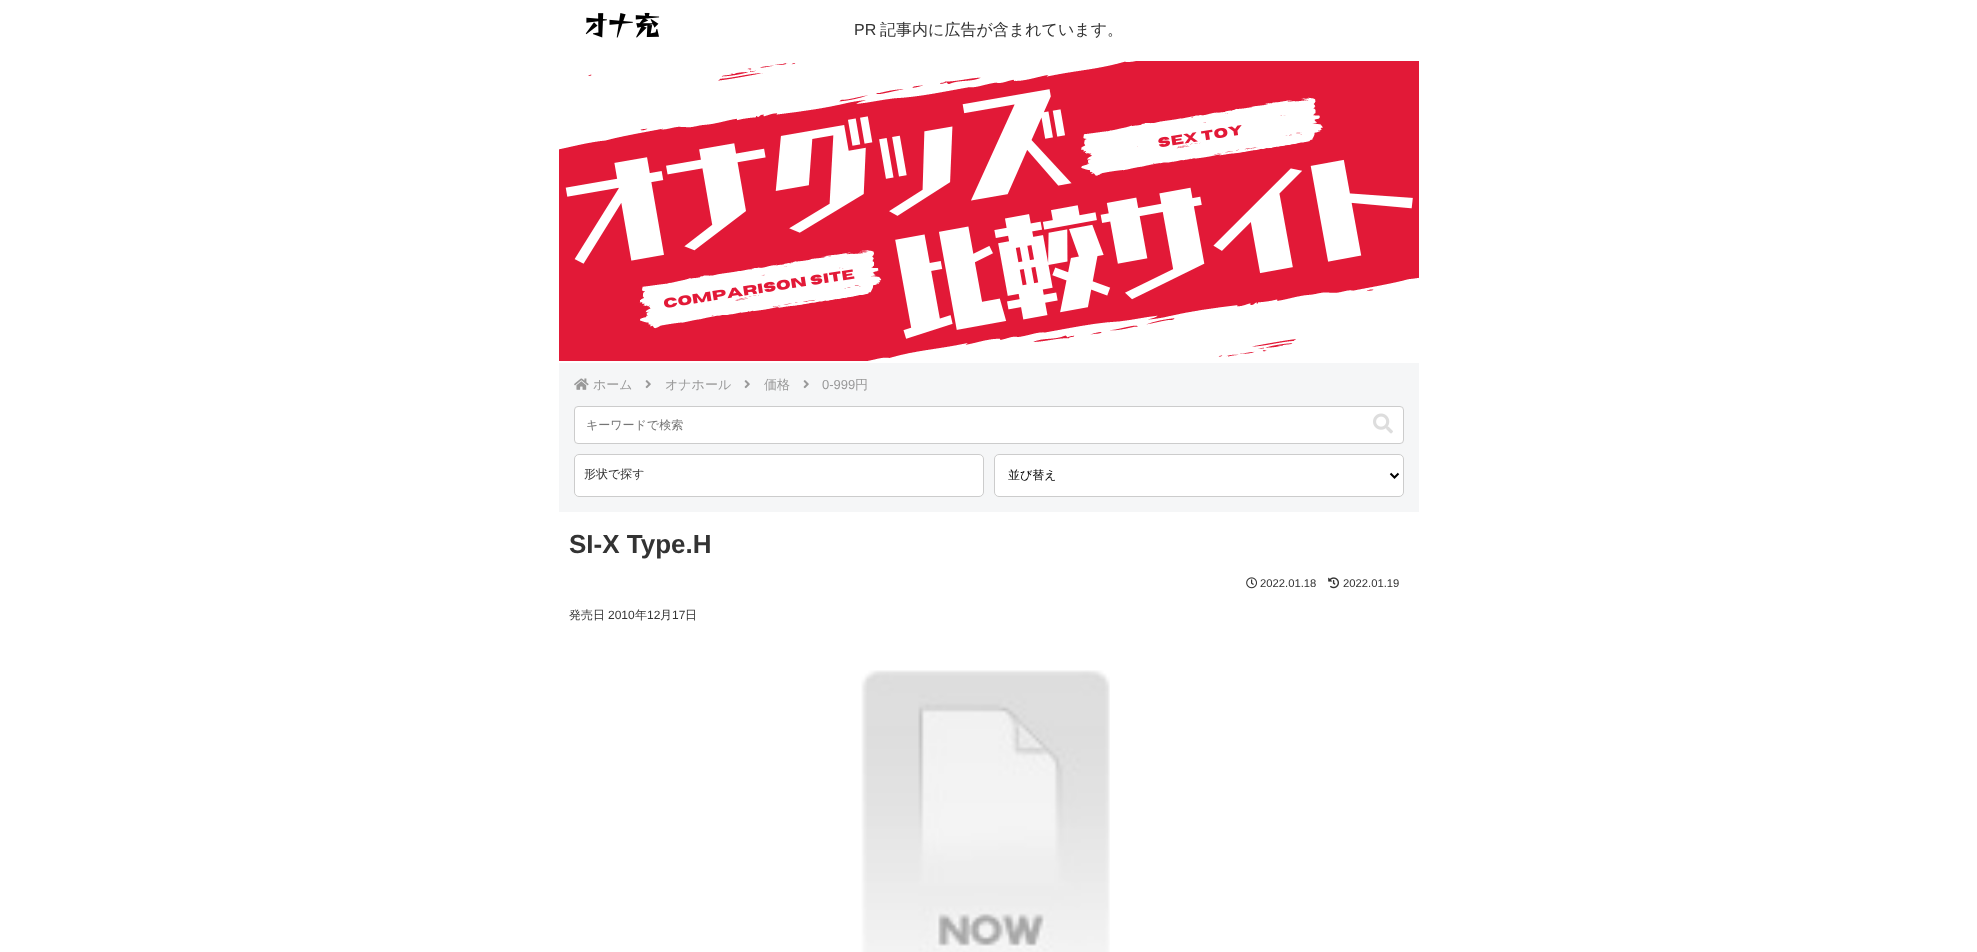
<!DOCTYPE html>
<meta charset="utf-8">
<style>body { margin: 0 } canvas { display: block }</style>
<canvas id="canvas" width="1977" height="952"></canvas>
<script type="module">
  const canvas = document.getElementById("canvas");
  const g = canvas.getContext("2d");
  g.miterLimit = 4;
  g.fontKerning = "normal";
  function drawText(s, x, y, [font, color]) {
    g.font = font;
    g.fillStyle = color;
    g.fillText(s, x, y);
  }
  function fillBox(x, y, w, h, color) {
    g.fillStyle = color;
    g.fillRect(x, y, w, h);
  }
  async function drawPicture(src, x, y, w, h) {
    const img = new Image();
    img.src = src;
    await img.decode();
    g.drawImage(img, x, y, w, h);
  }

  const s1 = ["16px Liberation Sans", "#333333"];
  const s2 = ["500 16px WenQuanYi Zen Hei", "#333333"];
  const s3 = ["500 13px WenQuanYi Zen Hei", "#999999"];
  const s4 = ["13px Liberation Sans", "#999999"];
  const s5 = ["500 12px WenQuanYi Zen Hei", "#757575"];
  const s6 = ["500 12px WenQuanYi Zen Hei", "#333333"];
  const s7 = ["500 12px WenQuanYi Zen Hei", "#000000"];
  const s8 = ["bold 26px Liberation Sans", "#333333"];
  const s9 = ["11.25px Liberation Sans", "#333333"];
  const s10 = ["12px Liberation Sans", "#333333"];

  fillBox(0, 0, 1977, 952, "#FFFFFF");
  drawText("PR", 854, 35, s1);
  drawText("記事内に広告が含まれています。", 880, 35, s2);
  await drawPicture("pic1.png", 585, 12, 75, 26);
  await drawPicture("pic2.png", 559, 61, 860, 300);
  fillBox(559, 363, 860, 149, "#F5F6F7");
  await drawPicture("pic3.png", 574, 378, 15, 12);
  drawText("ホーム", 593, 389, s3);
  await drawPicture("pic4.png", 645, 380, 6, 9);
  drawText("オナホール", 665, 389, s3);
  await drawPicture("pic4.png", 744, 380, 6, 9);
  drawText("価格", 764, 389, s3);
  await drawPicture("pic4.png", 803, 380, 6, 9);
  drawText("0-999", 822, 389, s4);
  drawText("円", 855, 389, s3);
  g.fillStyle = "#FFFFFF";
  g.beginPath();
  g.roundRect(574.5, 406.5, 829, 37, 3.5);
  g.fill();
  g.strokeStyle = "#CCCCCC";
  g.stroke();
  drawText("キーワードで検索", 586, 429, s5);
  await drawPicture("pic5.png", 1373, 413, 20, 21);
  g.fillStyle = "#FFFFFF";
  g.beginPath();
  g.roundRect(574.5, 454.5, 409, 42, 4.5);
  g.fill();
  g.stroke();
  drawText("形状で探す", 584, 478, s6);
  g.fillStyle = "#FFFFFF";
  g.beginPath();
  g.roundRect(994.5, 454.5, 409, 42, 4.5);
  g.fill();
  g.stroke();
  g.beginPath();
  g.moveTo(1390.5, 473.5);
  g.lineTo(1394.5, 477.5);
  g.lineTo(1398.5, 473.5);
  g.strokeStyle = "#000000";
  g.lineWidth = 2;
  g.stroke();
  drawText("並び替え", 1008, 479, s7);
  drawText("SI-X Type.H", 569, 553, s8);
  await drawPicture("pic6.png", 1246, 577, 11, 12);
  drawText("2022.01.18", 1260, 587, s9);
  await drawPicture("pic7.png", 1328, 577, 11, 12);
  drawText("2022.01.19", 1343, 587, s9);
  drawText("発売日", 569, 619, s6);
  drawText("2010", 608, 619, s10);
  drawText("年", 635, 619, s6);
  drawText("12", 647, 619, s10);
  drawText("月", 660, 619, s6);
  drawText("17", 672, 619, s10);
  drawText("日", 685, 619, s6);
  await drawPicture("pic8.png", 861, 670, 249, 282);
</script>
